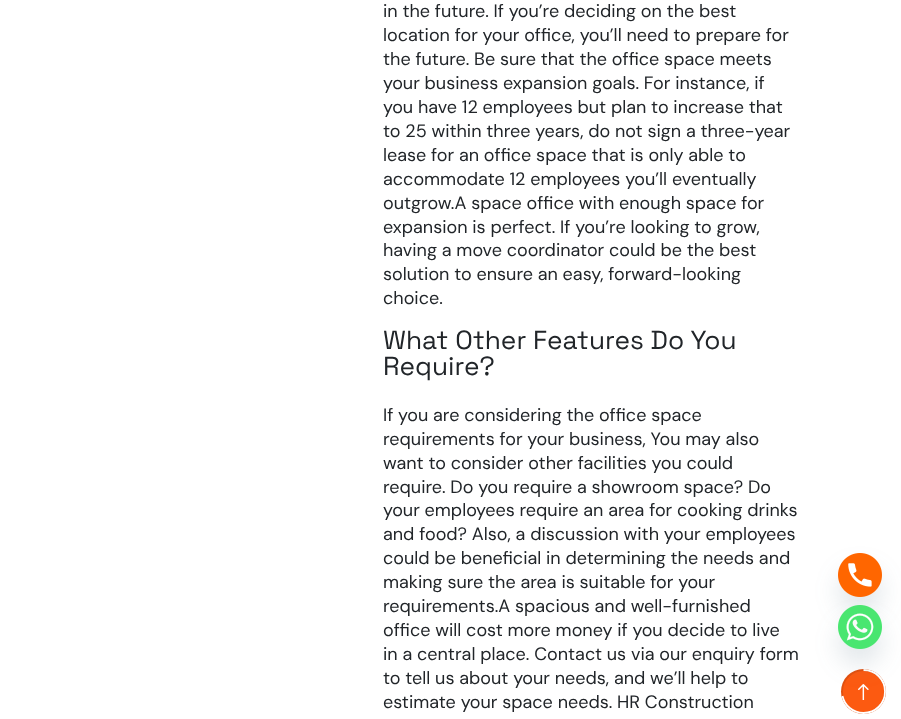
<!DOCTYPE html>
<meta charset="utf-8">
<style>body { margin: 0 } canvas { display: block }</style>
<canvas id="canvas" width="901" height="719"></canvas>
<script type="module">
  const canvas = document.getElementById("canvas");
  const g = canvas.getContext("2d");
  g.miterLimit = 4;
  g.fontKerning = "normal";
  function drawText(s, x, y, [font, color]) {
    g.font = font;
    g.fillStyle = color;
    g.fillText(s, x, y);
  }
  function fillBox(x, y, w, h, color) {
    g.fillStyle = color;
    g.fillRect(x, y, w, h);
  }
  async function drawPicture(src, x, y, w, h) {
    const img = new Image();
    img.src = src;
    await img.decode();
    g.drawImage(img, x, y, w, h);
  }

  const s1 = ["18px DM Sans", "#212529"];
  const s2 = ["26.25px Space Grotesk", "#212529"];

  fillBox(0, 0, 901, 719, "#FFFFFF");
  drawText("in the future. If you’re deciding on the best", 383, 17, s1);
  drawText("location for your office, you’ll need to prepare for", 383, 41, s1);
  drawText("the future. Be sure that the office space meets", 383, 65, s1);
  drawText("your business expansion goals. For instance, if", 383, 89, s1);
  drawText("you have 12 employees but plan to increase that", 383, 113, s1);
  drawText("to 25 within three years, do not sign a three-year", 383, 137, s1);
  drawText("lease for an office space that is only able to", 383, 161, s1);
  drawText("accommodate 12 employees you’ll eventually", 383, 185, s1);
  drawText("outgrow.A space office with enough space for", 383, 209, s1);
  drawText("expansion is perfect. If you’re looking to grow,", 383, 233, s1);
  drawText("having a move coordinator could be the best", 383, 256, s1);
  drawText("solution to ensure an easy, forward-looking", 383, 280, s1);
  drawText("choice.", 383, 304, s1);
  drawText("What Other Features Do You", 383, 349, s2);
  drawText("Require?", 383, 375, s2);
  drawText("If you are considering the office space", 383, 421, s1);
  drawText("requirements for your business, You may also", 383, 445, s1);
  drawText("want to consider other facilities you could", 383, 469, s1);
  drawText("require. Do you require a showroom space? Do", 383, 493, s1);
  drawText("your employees require an area for cooking drinks", 383, 516, s1);
  drawText("and food? Also, a discussion with your employees", 383, 540, s1);
  drawText("could be beneficial in determining the needs and", 383, 564, s1);
  drawText("making sure the area is suitable for your", 383, 588, s1);
  drawText("requirements.A spacious and well-furnished", 383, 612, s1);
  drawText("office will cost more money if you decide to live", 383, 636, s1);
  drawText("in a central place. Contact us via our enquiry form", 383, 660, s1);
  drawText("to tell us about your needs, and we’ll help to", 383, 684, s1);
  drawText("estimate your space needs. HR Construction", 383, 708, s1);
  g.fillStyle = "rgba(73, 104, 126, 0.16)";
  g.filter = "blur(12px)";
  g.beginPath();
  g.roundRect(838, 569, 44, 44, 22);
  g.fill();
  g.filter = "none";
  await drawPicture("pic1.png", 838, 553, 44, 44);
  g.fillStyle = "#FC5A11";
  g.beginPath();
  g.arc(863.5, 691.5, 22.5, 0, Math.PI * 2);
  g.fill();
  g.beginPath();
  g.arc(863.5, 691.5, 21.5, 0, Math.PI * 2);
  g.strokeStyle = "rgba(0, 0, 0, 0.1)";
  g.lineWidth = 2;
  g.stroke();
  await drawPicture("pic3.png", 858, 684, 11, 16);
  g.beginPath();
  g.moveTo(863.5, 670);
  g.bezierCurveTo(875.5, 670, 885, 679.5, 885, 691.5);
  g.bezierCurveTo(885, 703.5, 875.5, 713, 863.5, 713);
  g.bezierCurveTo(853, 713, 844.5, 705.5, 842.5, 696);
  g.strokeStyle = "#FFFFFF";
  g.lineWidth = 1.8;
  g.stroke();
  g.fillStyle = "rgba(73, 104, 126, 0.16)";
  g.filter = "blur(12px)";
  g.beginPath();
  g.roundRect(838, 621, 44, 44, 22);
  g.fill();
  g.filter = "none";
  await drawPicture("pic2.png", 838, 605, 44, 44);
</script>
